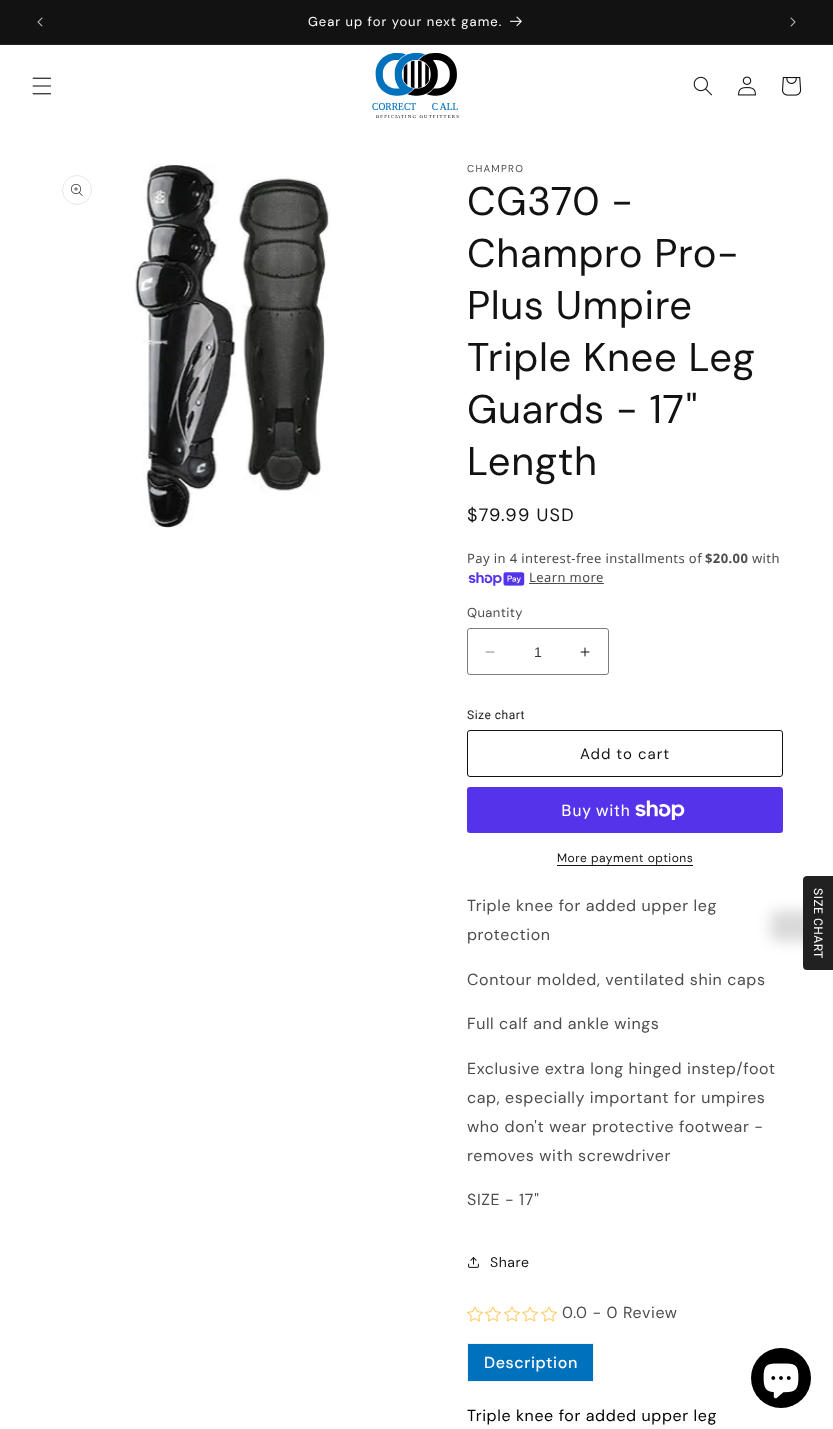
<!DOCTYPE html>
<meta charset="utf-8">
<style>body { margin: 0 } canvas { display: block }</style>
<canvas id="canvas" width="833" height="1429"></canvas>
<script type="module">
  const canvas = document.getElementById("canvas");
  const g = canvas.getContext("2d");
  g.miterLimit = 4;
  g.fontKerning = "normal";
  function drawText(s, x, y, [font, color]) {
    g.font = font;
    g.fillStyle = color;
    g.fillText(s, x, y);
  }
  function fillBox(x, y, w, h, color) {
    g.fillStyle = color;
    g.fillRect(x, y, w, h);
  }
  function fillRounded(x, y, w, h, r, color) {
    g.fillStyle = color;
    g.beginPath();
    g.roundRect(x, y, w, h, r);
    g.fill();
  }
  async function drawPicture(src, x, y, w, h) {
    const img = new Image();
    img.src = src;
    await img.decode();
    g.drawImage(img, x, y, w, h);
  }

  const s1 = ["13px DM Sans", "#FFFFFF"];
  const s2 = ["10px DM Sans", "#4D4D4D"];
  const s3 = ["40px DM Sans", "#121212"];
  const s4 = ["18px DM Sans", "#121212"];
  const s5 = ["13px Noto Sans", "#4D4D4D"];
  const s6 = ["bold 13px Noto Sans", "#4D4D4D"];
  const s7 = ["13px DM Sans", "#4D4D4D"];
  const s8 = ["14px Liberation Sans", "#363636"];
  const s9 = ["12px Roboto", "#212121"];
  const s10 = ["15px DM Sans", "#121212"];
  const s11 = ["16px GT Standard", "#FFFFFF"];
  const s12 = ["12px DM Sans", "#121212"];
  const s13 = ["16px DM Sans", "#4D4D4D"];
  const s14 = ["14px DM Sans", "#121212"];
  const s15 = ["500 16px DM Sans", "#FFFFFF"];
  const s16 = ["16px DM Sans", "#000000"];

  fillBox(0, 0, 833, 1429, "#FFFFFF");
  fillBox(0, 0, 833, 44, "#121212");
  fillBox(0, 44, 833, 1, "#252525");
  await drawPicture("pic1.png", 37, 17, 6, 10);
  g.letterSpacing = "1px";
  drawText("Gear up for your next game.", 308, 26, s1);
  await drawPicture("pic2.png", 510, 16, 12, 11);
  await drawPicture("pic3.png", 790, 17, 6, 10);
  await drawPicture("pic4.png", 32, 77, 20, 18);
  await drawPicture("pic5.png", 372, 53, 87, 65);
  await drawPicture("pic6.png", 693, 76, 19, 20);
  await drawPicture("pic7.png", 738, 76, 18, 20);
  await drawPicture("pic8.png", 782, 77, 20, 19);
  g.beginPath();
  g.arc(77, 190, 14.5, 0, Math.PI * 2);
  g.strokeStyle = "#E7E7E7";
  g.stroke();
  await drawPicture("pic9.png", 71, 184, 12, 12);
  await drawPicture("pic10.png", 134, 163, 197, 366);
  g.letterSpacing = "1.25px";
  drawText("CHAMPRO", 467, 172, s2);
  g.letterSpacing = "0.6px";
  drawText("CG370 -", 467, 215, s3);
  drawText("Champro Pro-", 467, 267, s3);
  drawText("Plus Umpire", 467, 319, s3);
  drawText("Triple Knee Leg", 467, 371, s3);
  drawText("Guards - 17\"", 467, 423, s3);
  drawText("Length", 467, 475, s3);
  g.letterSpacing = "1.25px";
  drawText("$79.99 USD", 467, 521, s4);
  g.letterSpacing = "0.4px";
  drawText("Pay in 4 interest-free installments of", 467, 563, s5);
  drawText("$20.00", 705, 563, s6);
  drawText("with", 752, 563, s5);
  await drawPicture("pic11.png", 468, 572, 57, 14);
  drawText("Learn more", 529, 582, s5);
  fillBox(529, 583, 75, 1, "#4D4D4D");
  drawText("Quantity", 467, 617, s7);
  await drawPicture("pic12.png", 485, 651, 10, 2);
  await drawPicture("pic13.png", 580, 647, 10, 10);
  g.beginPath();
  g.roundRect(467.5, 628.5, 141, 46, 2.5);
  g.strokeStyle = "#7D7D7D";
  g.stroke();
  g.letterSpacing = "0px";
  drawText("1", 534, 657, s8);
  g.letterSpacing = "0.5px";
  drawText("Size chart", 467, 719, s9);
  g.beginPath();
  g.roundRect(467.5, 730.5, 315, 46, 2.5);
  g.strokeStyle = "#121212";
  g.stroke();
  g.letterSpacing = "1px";
  drawText("Add to cart", 580, 759, s10);
  fillRounded(467, 787, 316, 46, 3, "#5433EB");
  g.letterSpacing = "0.6px";
  drawText("Buy with", 561, 816, s11);
  await drawPicture("pic14.png", 635, 800, 50, 20);
  g.letterSpacing = "0.5px";
  drawText("More payment options", 557, 862, s12);
  fillBox(557, 865, 136, 1, "#121212");
  g.letterSpacing = "0.6px";
  drawText("Triple knee for added upper leg", 467, 911, s13);
  drawText("protection", 467, 940, s13);
  drawText("Contour molded, ventilated shin caps", 467, 985, s13);
  drawText("Full calf and ankle wings", 467, 1029, s13);
  drawText("Exclusive extra long hinged instep/foot", 467, 1074, s13);
  drawText("cap, especially important for umpires", 467, 1103, s13);
  drawText("who don't wear protective footwear -", 467, 1132, s13);
  drawText("removes with screwdriver", 467, 1161, s13);
  drawText("SIZE - 17\"", 467, 1205, s13);
  await drawPicture("pic15.png", 468, 1257, 11, 11);
  drawText("Share", 490, 1267, s14);
  await drawPicture("pic16.png", 467, 1306, 16, 16);
  await drawPicture("pic16.png", 485, 1306, 16, 16);
  await drawPicture("pic16.png", 504, 1306, 16, 16);
  await drawPicture("pic16.png", 522, 1306, 16, 16);
  await drawPicture("pic16.png", 541, 1306, 16, 16);
  drawText("0.0 - 0 Review", 562, 1318, s13);
  g.fillStyle = "#0071BC";
  g.beginPath();
  g.rect(467.5, 1343.5, 126, 38);
  g.fill();
  g.strokeStyle = "#F2F2F2";
  g.stroke();
  drawText("Description", 484, 1368, s15);
  drawText("Triple knee for added upper leg", 467, 1421, s16);
  g.fillStyle = "rgba(0, 0, 0, 0.15)";
  g.filter = "blur(7px)";
  g.beginPath();
  g.roundRect(771, 911, 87, 30, 4);
  g.fill();
  g.filter = "none";
  g.fillStyle = "#212121";
  g.beginPath();
  g.moveTo(833, 876);
  g.lineTo(833, 970);
  g.lineTo(807, 970);
  g.bezierCurveTo(805, 970, 803, 969, 803, 966);
  g.lineTo(803, 880);
  g.bezierCurveTo(803, 877, 805, 876, 807, 876);
  g.closePath();
  g.fill();
  g.letterSpacing = "0.5px";
  g.font = "12px Roboto";
  g.fillStyle = "#FFFFFF";
  g.save();
  g.translate(814, 888);
  g.rotate(90 * Math.PI / 180);
  g.fillText("SIZE CHART", 0, 0);
  g.restore();
  g.fillStyle = "#000000";
  g.beginPath();
  g.arc(781, 1378, 30, 0, Math.PI * 2);
  g.fill();
  await drawPicture("pic17.png", 763, 1363, 36, 36);
</script>
